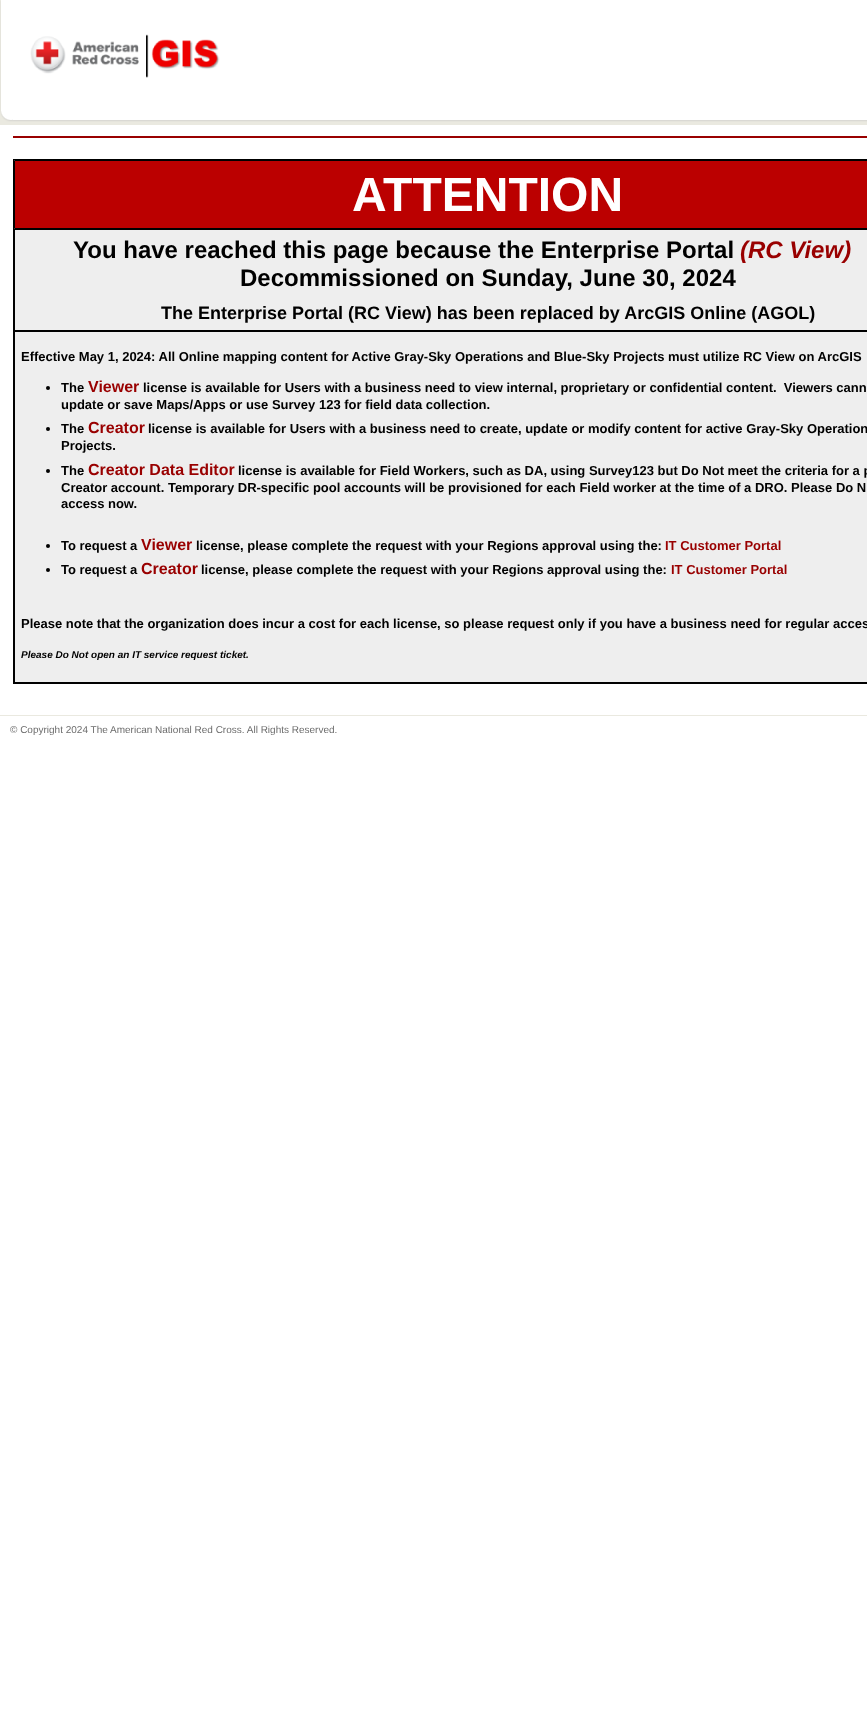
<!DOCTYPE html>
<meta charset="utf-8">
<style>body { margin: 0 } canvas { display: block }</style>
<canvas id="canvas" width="867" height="1715"></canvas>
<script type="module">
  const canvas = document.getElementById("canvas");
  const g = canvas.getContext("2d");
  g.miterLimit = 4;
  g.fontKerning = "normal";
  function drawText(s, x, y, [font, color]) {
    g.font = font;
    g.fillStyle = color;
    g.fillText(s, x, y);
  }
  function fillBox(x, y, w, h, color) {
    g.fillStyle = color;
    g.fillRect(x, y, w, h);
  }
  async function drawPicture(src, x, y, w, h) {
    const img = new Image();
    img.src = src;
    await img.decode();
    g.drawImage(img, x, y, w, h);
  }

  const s1 = ["bold 48px Liberation Sans", "#FFFFFF"];
  const s2 = ["bold 24px Liberation Sans", "#000000"];
  const s3 = ["italic bold 24px Liberation Sans", "#990000"];
  const s4 = ["bold 18px Liberation Sans", "#000000"];
  const s5 = ["bold 13px Liberation Sans", "#000000"];
  const s6 = ["bold 16px Liberation Sans", "#990000"];
  const s7 = ["bold 13px Liberation Sans", "#990000"];
  const s8 = ["italic bold 10px Liberation Sans", "#000000"];
  const s9 = ["10px Liberation Sans", "#6D6D6D"];

  fillBox(0, 0, 867, 1715, "#FFFFFF");
  await drawPicture("pic1.png", 0, 0, 867, 125);
  await drawPicture("pic2.png", 30, 34, 190, 44);
  fillBox(13, 136, 854, 2, "#990000");
  fillBox(15, 230, 852, 452, "#EEEEEE");
  g.strokeStyle = "#000000";
  g.strokeRect(13.5, 159.5, 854, 524);
  g.fillStyle = "#BB0000";
  g.beginPath();
  g.rect(14.5, 160.5, 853, 68);
  g.fill();
  g.stroke();
  drawText("ATTENTION", 352, 211, s1);
  g.strokeRect(14.5, 229.5, 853, 101);
  drawText("You have reached this page because the Enterprise Portal", 73, 258, s2);
  drawText("(RC View)", 740, 258, s3);
  drawText("Decommissioned on Sunday, June 30, 2024", 240, 286, s2);
  drawText("The Enterprise Portal (RC View) has been replaced by ArcGIS Online (AGOL)", 161, 319, s4);
  g.strokeRect(14.5, 331.5, 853, 351);
  drawText("Effective May 1, 2024: All Online mapping content for Active Gray-Sky Operations and Blue-Sky Projects must utilize RC View on ArcGIS", 21, 361, s5);
  g.beginPath();
  g.arc(48, 388, 2, 0, Math.PI * 2);
  g.fill();
  drawText("The", 61, 392, s5);
  drawText("Viewer", 88, 392, s6);
  drawText("license is available for Users with a business need to view internal, proprietary or confidential content.  Viewers cann", 143, 392, s5);
  drawText("update or save Maps/Apps or use Survey 123 for field data collection.", 61, 409, s5);
  g.beginPath();
  g.arc(48, 429, 2, 0, Math.PI * 2);
  g.fill();
  drawText("The", 61, 433, s5);
  drawText("Creator", 88, 433, s6);
  drawText("license is available for Users with a business need to create, update or modify content for active Gray-Sky Operation", 148, 433, s5);
  drawText("Projects.", 61, 450, s5);
  g.beginPath();
  g.arc(48, 471, 2, 0, Math.PI * 2);
  g.fill();
  drawText("The", 61, 475, s5);
  drawText("Creator Data Editor", 88, 475, s6);
  drawText("license is available for Field Workers, such as DA, using Survey123 but Do Not meet the criteria for a p", 238, 475, s5);
  drawText("Creator account. Temporary DR-specific pool accounts will be provisioned for each Field worker at the time of a DRO. Please Do N", 61, 492, s5);
  drawText("access now.", 61, 508, s5);
  g.beginPath();
  g.arc(48, 546, 2, 0, Math.PI * 2);
  g.fill();
  drawText("To request a", 61, 550, s5);
  drawText("Viewer", 141, 550, s6);
  drawText("license, please complete the request with your Regions approval using the:", 196, 550, s5);
  drawText("IT Customer Portal", 665, 550, s7);
  g.fillStyle = "#000000";
  g.beginPath();
  g.arc(48, 570, 2, 0, Math.PI * 2);
  g.fill();
  drawText("To request a", 61, 574, s5);
  drawText("Creator", 141, 574, s6);
  drawText("license, please complete the request with your Regions approval using the:", 201, 574, s5);
  drawText("IT Customer Portal", 671, 574, s7);
  drawText("Please note that the organization does incur a cost for each license, so please request only if you have a business need for regular acces", 21, 628, s5);
  drawText("Please Do Not open an IT service request ticket.", 21, 658, s8);
  fillBox(0, 715, 867, 1, "#EAE9E0");
  drawText("© Copyright 2024 The American National Red Cross. All Rights Reserved.", 10, 733, s9);
</script>
